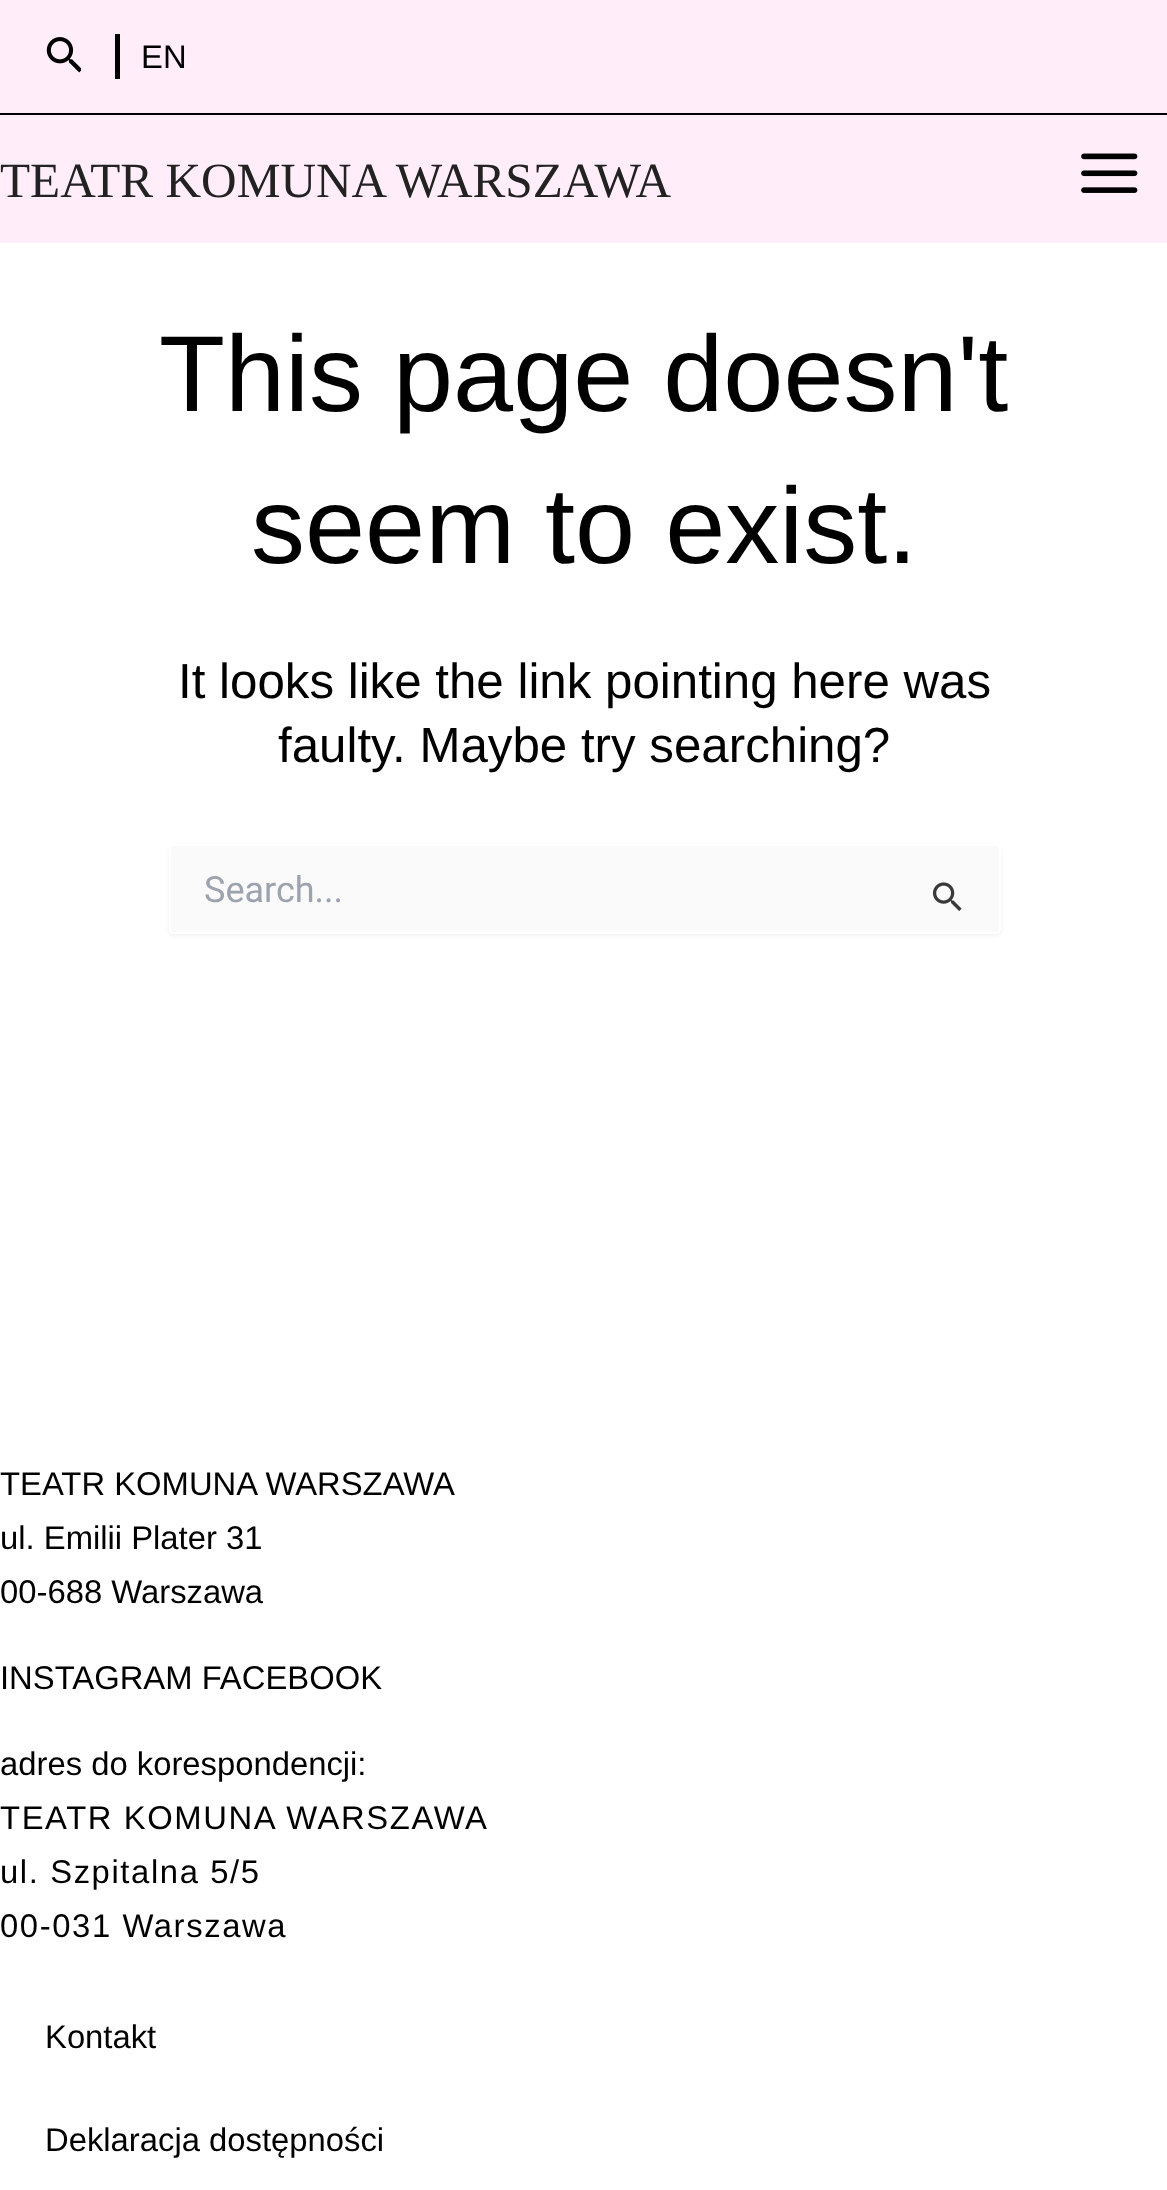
<!DOCTYPE html>
<meta charset="utf-8">
<style>body { margin: 0 } canvas { display: block }</style>
<canvas id="canvas" width="1167" height="2190"></canvas>
<script type="module">
  const canvas = document.getElementById("canvas");
  const g = canvas.getContext("2d");
  g.miterLimit = 4;
  g.fontKerning = "normal";
  function drawText(s, x, y, [font, color]) {
    g.font = font;
    g.fillStyle = color;
    g.fillText(s, x, y);
  }
  function fillBox(x, y, w, h, color) {
    g.fillStyle = color;
    g.fillRect(x, y, w, h);
  }
  async function drawPicture(src, x, y, w, h) {
    const img = new Image();
    img.src = src;
    await img.decode();
    g.drawImage(img, x, y, w, h);
  }

  const s1 = ["32.8px Liberation Sans", "#000000"];
  const s2 = ["49.25px Liberation Serif", "#222222"];
  const s3 = ["108px Liberation Sans", "#000000"];
  const s4 = ["49.25px Liberation Sans", "#000000"];
  const s5 = ["36px Roboto", "#9CA3AF"];

  fillBox(0, 0, 1167, 2190, "#FFFFFF");
  fillBox(0, 0, 1167, 113, "#FFEDFA");
  fillBox(0, 113, 1167, 2, "#000000");
  await drawPicture("pic1.png", 46, 37, 35, 36);
  fillBox(115, 34, 5, 45, "#000000");
  drawText("EN", 141, 68, s1);
  fillBox(0, 115, 1167, 128, "#FFEDFA");
  drawText("TEATR KOMUNA WARSZAWA", 0, 197, s2);
  await drawPicture("pic2.png", 1081, 153, 57, 40);
  drawText("This page doesn't", 159, 411, s3);
  drawText("seem to exist.", 251, 563, s3);
  drawText("It looks like the link pointing here was", 178, 698, s4);
  drawText("faulty. Maybe try searching?", 278, 762, s4);
  g.fillStyle = "rgba(0, 0, 0, 0.05)";
  g.filter = "blur(2px)";
  g.beginPath();
  g.roundRect(169, 846, 832, 90, 5);
  g.fill();
  g.filter = "none";
  g.fillStyle = "#FAFAFA";
  g.beginPath();
  g.roundRect(170, 845, 830, 88, 4);
  g.fill();
  g.strokeStyle = "#FFFFFF";
  g.lineWidth = 2;
  g.stroke();
  drawText("Search...", 204, 902, s5);
  await drawPicture("pic3.png", 932, 882, 30, 29);
  drawText("TEATR KOMUNA WARSZAWA", 0, 1495, s1);
  drawText("ul. Emilii Plater 31", 0, 1549, s1);
  drawText("00-688 Warszawa", 0, 1603, s1);
  drawText("INSTAGRAM FACEBOOK", 0, 1689, s1);
  drawText("adres do korespondencji:", 0, 1775, s1);
  g.letterSpacing = "1.6px";
  drawText("TEATR KOMUNA WARSZAWA", 0, 1829, s1);
  drawText("ul. Szpitalna 5/5", 0, 1883, s1);
  drawText("00-031 Warszawa", 0, 1937, s1);
  g.letterSpacing = "0px";
  drawText("Kontakt", 45, 2048, s1);
  drawText("Deklaracja dostępności", 45, 2151, s1);
</script>
